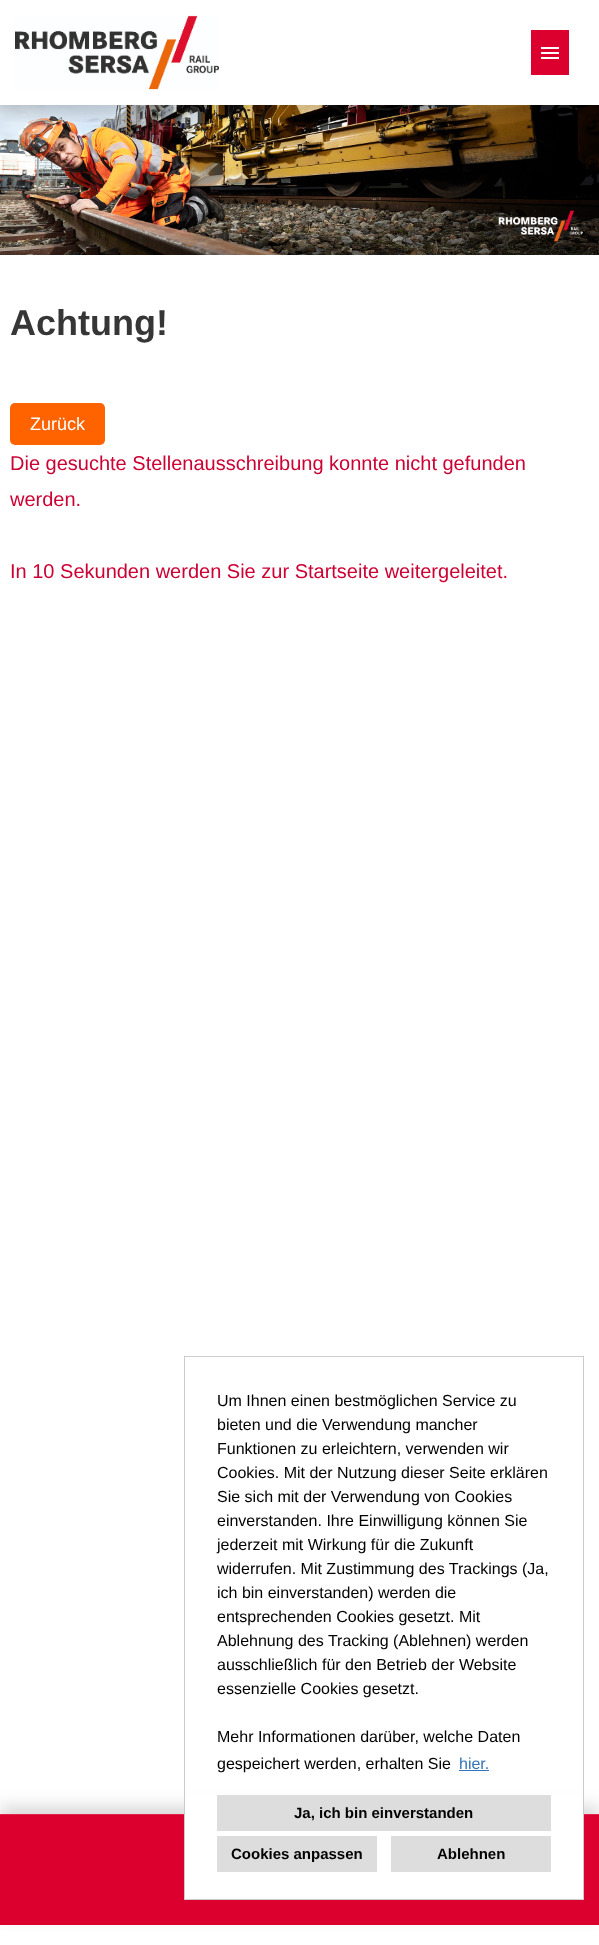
<!DOCTYPE html>
<meta charset="utf-8">
<style>body { margin: 0 } canvas { display: block }</style>
<canvas id="canvas" width="599" height="1945"></canvas>
<script type="module">
  const canvas = document.getElementById("canvas");
  const g = canvas.getContext("2d");
  g.miterLimit = 4;
  g.fontKerning = "normal";
  function drawText(s, x, y, [font, color]) {
    g.font = font;
    g.fillStyle = color;
    g.fillText(s, x, y);
  }
  function fillBox(x, y, w, h, color) {
    g.fillStyle = color;
    g.fillRect(x, y, w, h);
  }
  function fillRounded(x, y, w, h, r, color) {
    g.fillStyle = color;
    g.beginPath();
    g.roundRect(x, y, w, h, r);
    g.fill();
  }
  async function drawPicture(src, x, y, w, h) {
    const img = new Image();
    img.src = src;
    await img.decode();
    g.drawImage(img, x, y, w, h);
  }

  const s1 = ["bold 36px Liberation Sans", "#363636"];
  const s2 = ["18px Liberation Sans", "#FFFFFF"];
  const s3 = ["20px Liberation Sans", "#CC0033"];
  const s4 = ["16px Liberation Sans", "#000000"];
  const s5 = ["16px Liberation Sans", "#3374BA"];
  const s6 = ["bold 15px Liberation Sans", "#000000"];

  fillBox(0, 0, 599, 1945, "#FFFFFF");
  await drawPicture("pic2.png", 0, 105, 599, 150);
  g.save();
  g.beginPath();
  g.rect(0, 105, 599, 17);
  g.clip();
  g.fillStyle = "rgba(0, 0, 0, 0.15)";
  g.filter = "blur(8px)";
  g.beginPath();
  g.rect(0, 8, 599, 105);
  g.fill();
  g.filter = "none";
  g.restore();
  await drawPicture("pic1.png", 15, 15, 204, 75);
  fillBox(531, 30, 38, 45, "#DC002E");
  fillBox(541, 47, 18, 2, "#FFFFFF");
  fillBox(541, 52, 18, 2, "#FFFFFF");
  fillBox(541, 57, 18, 2, "#FFFFFF");
  drawText("Achtung!", 10, 335, s1);
  fillRounded(10, 403, 95, 42, 5, "#FF6300");
  drawText("Zurück", 30, 430, s2);
  drawText("Die gesuchte Stellenausschreibung konnte nicht gefunden", 10, 470, s3);
  drawText("werden.", 10, 506, s3);
  drawText("In 10 Sekunden werden Sie zur Startseite weitergeleitet.", 10, 578, s3);
  g.fillStyle = "rgba(0, 0, 0, 0.15)";
  g.filter = "blur(8px)";
  g.beginPath();
  g.rect(0, 1806, 599, 111);
  g.fill();
  g.filter = "none";
  fillBox(0, 1815, 599, 110, "#DC002E");
  fillBox(0, 1814, 599, 1, "#E1264D");
  fillBox(185, 1794, 398, 105, "#FFFFFF");
  g.strokeStyle = "#CCCCCC";
  g.strokeRect(184.5, 1356.5, 399, 543);
  drawText("Um Ihnen einen bestmöglichen Service zu", 217, 1406, s4);
  drawText("bieten und die Verwendung mancher", 217, 1430, s4);
  drawText("Funktionen zu erleichtern, verwenden wir", 217, 1454, s4);
  drawText("Cookies. Mit der Nutzung dieser Seite erklären", 217, 1478, s4);
  drawText("Sie sich mit der Verwendung von Cookies", 217, 1502, s4);
  drawText("einverstanden. Ihre Einwilligung können Sie", 217, 1526, s4);
  drawText("jederzeit mit Wirkung für die Zukunft", 217, 1550, s4);
  drawText("widerrufen. Mit Zustimmung des Trackings (Ja,", 217, 1574, s4);
  drawText("ich bin einverstanden) werden die", 217, 1598, s4);
  drawText("entsprechenden Cookies gesetzt. Mit", 217, 1622, s4);
  drawText("Ablehnung des Tracking (Ablehnen) werden", 217, 1646, s4);
  drawText("ausschließlich für den Betrieb der Website", 217, 1670, s4);
  drawText("essenzielle Cookies gesetzt.", 217, 1694, s4);
  drawText("Mehr Informationen darüber, welche Daten", 217, 1742, s4);
  drawText("gespeichert werden, erhalten Sie", 217, 1769, s4);
  drawText("hier.", 459, 1769, s5);
  fillBox(459, 1770, 30, 1, "#3374BA");
  fillBox(217, 1795, 334, 36, "#DDDDDD");
  drawText("Ja, ich bin einverstanden", 294, 1818, s6);
  fillBox(217, 1836, 160, 36, "#DDDDDD");
  drawText("Cookies anpassen", 231, 1859, s6);
  fillBox(391, 1836, 160, 36, "#DDDDDD");
  drawText("Ablehnen", 437, 1859, s6);
</script>
